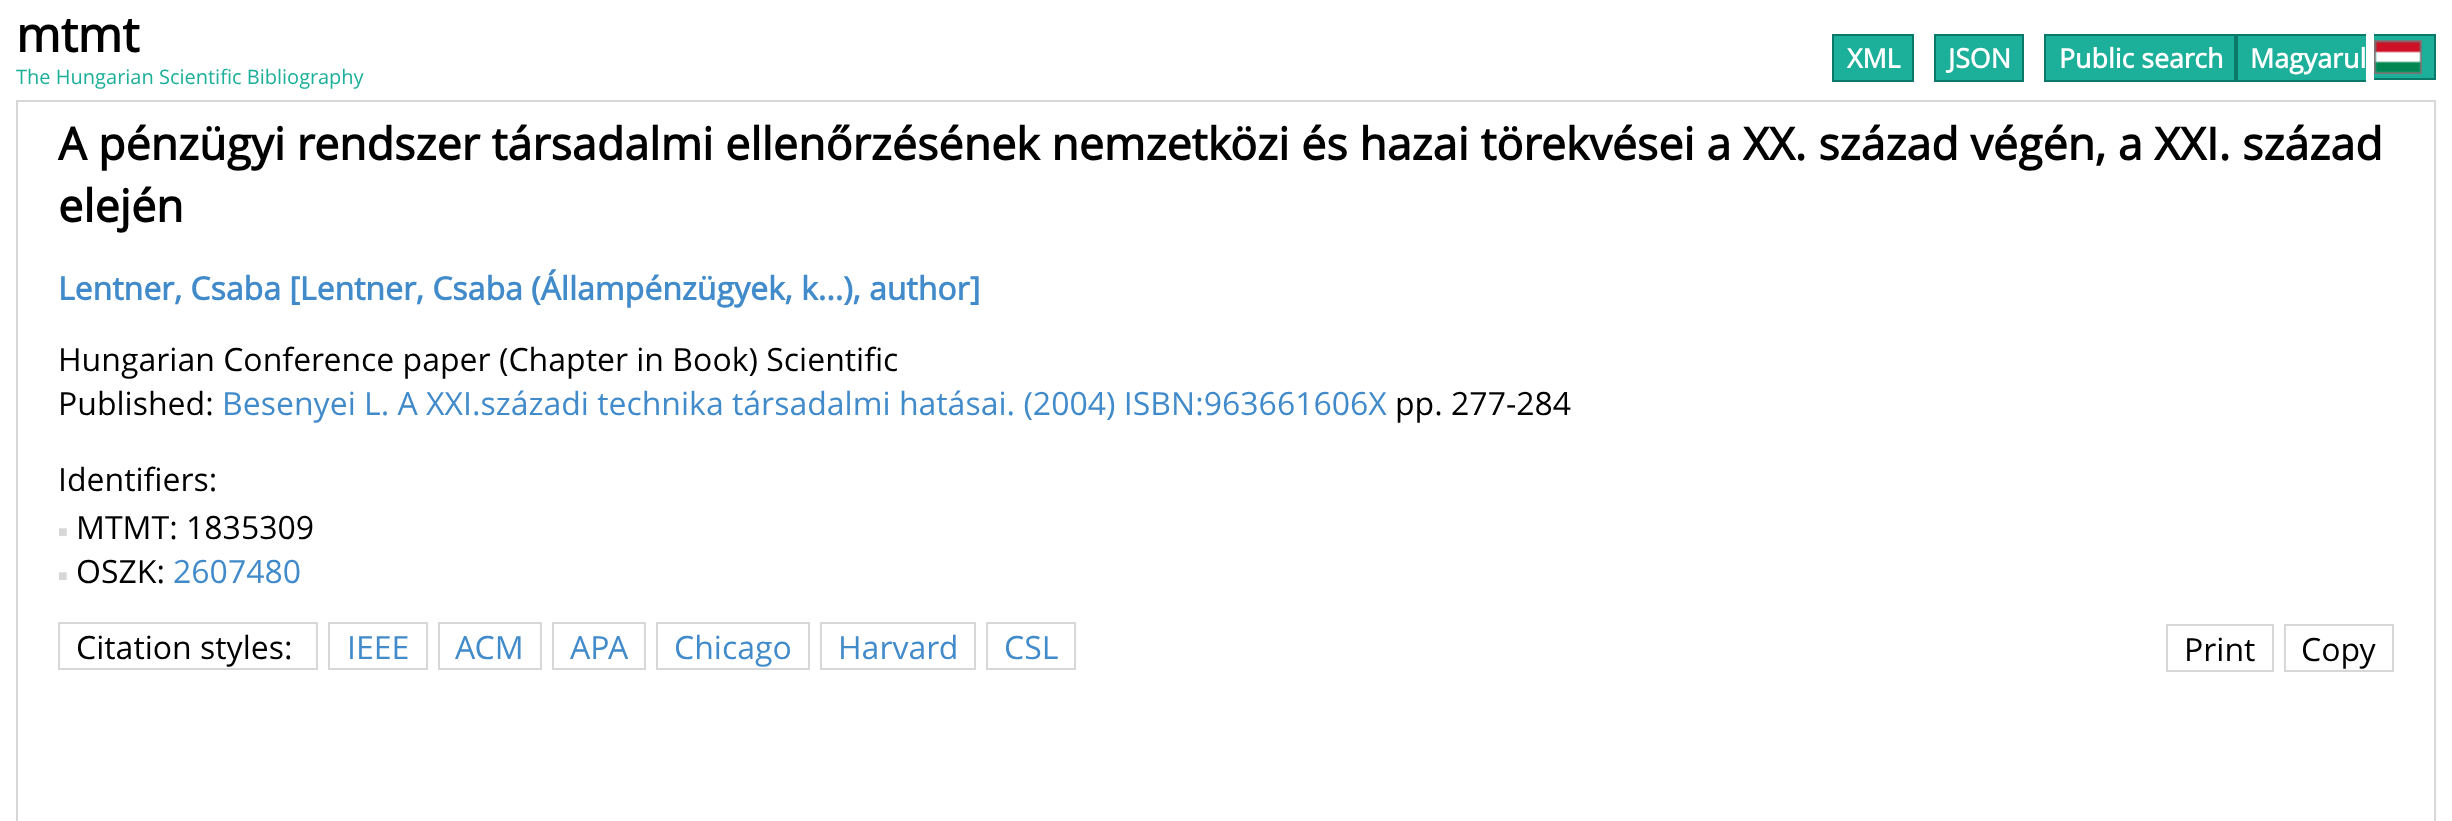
<!DOCTYPE html>
<meta charset="utf-8">
<style>body { margin: 0 } canvas { display: block }</style>
<canvas id="canvas" width="2452" height="821"></canvas>
<script type="module">
  const canvas = document.getElementById("canvas");
  const g = canvas.getContext("2d");
  g.miterLimit = 4;
  g.fontKerning = "normal";
  function drawText(s, x, y, [font, color]) {
    g.font = font;
    g.fillStyle = color;
    g.fillText(s, x, y);
  }
  function fillBox(x, y, w, h, color) {
    g.fillStyle = color;
    g.fillRect(x, y, w, h);
  }
  async function drawPicture(src, x, y, w, h) {
    const img = new Image();
    img.src = src;
    await img.decode();
    g.drawImage(img, x, y, w, h);
  }

  const s1 = ["bold 48px Open Sans", "#000000"];
  const s2 = ["20px Open Sans", "#1CAF9A"];
  const s3 = ["bold 26.75px Open Sans", "#FFFFFF"];
  const s4 = ["bold 44.8px Open Sans", "#000000"];
  const s5 = ["bold 32px Open Sans", "#428BCA"];
  const s6 = ["32px Open Sans", "#000000"];
  const s7 = ["32px Open Sans", "#428BCA"];
  const s8 = ["16px Liberation Serif", "#D7D7D7"];

  fillBox(0, 0, 2452, 821, "#FFFFFF");
  g.strokeStyle = "#D7D7D7";
  g.lineWidth = 2;
  g.strokeRect(17, 81, 2418, 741);
  fillBox(16, 80, 2420, 20, "#FFFFFF");
  fillBox(16, 100, 2420, 2, "#D7D7D7");
  drawText("mtmt", 16, 52, s1);
  drawText("The Hungarian Scientific Bibliography", 16, 84, s2);
  g.beginPath();
  g.rect(1833, 35, 80, 46);
  g.fill();
  g.strokeStyle = "#0B7969";
  g.stroke();
  drawText("XML", 1847, 68, s3);
  g.fillStyle = "#1CAF9A";
  g.beginPath();
  g.rect(1935, 35, 88, 46);
  g.fill();
  g.stroke();
  drawText("JSON", 1948, 68, s3);
  g.fillStyle = "#1CAF9A";
  g.beginPath();
  g.rect(2045, 35, 190, 46);
  g.fill();
  g.stroke();
  drawText("Public search", 2059, 68, s3);
  fillBox(2238, 36, 128, 44, "#1CAF9A");
  drawText("Magyarul", 2250, 68, s3);
  fillBox(2236, 34, 130, 2, "#0B7969");
  fillBox(2236, 80, 130, 2, "#0B7969");
  fillBox(2236, 34, 2, 48, "#0B7969");
  fillBox(2374, 36, 60, 42, "#1CAF9A");
  fillBox(2374, 34, 62, 2, "#0B7969");
  fillBox(2434, 34, 2, 46, "#0B7969");
  fillBox(2374, 78, 62, 2, "#0B7969");
  g.strokeStyle = "#777777";
  g.strokeRect(2375, 41, 46, 32);
  await drawPicture("pic1.png", 2375, 41, 46, 32);
  drawText("A pénzügyi rendszer társadalmi ellenőrzésének nemzetközi és hazai törekvései a XX. század végén, a XXI. század", 58, 160, s4);
  drawText("elején", 58, 222, s4);
  drawText("Lentner, Csaba [Lentner, Csaba (Állampénzügyek, k...), author]", 58, 300, s5);
  drawText("Hungarian Conference paper (Chapter in Book) Scientific", 58, 371, s6);
  drawText("Published:", 58, 415, s6);
  drawText("Besenyei L. A XXI.századi technika társadalmi hatásai. (2004) ISBN:963661606X", 222, 415, s7);
  drawText("pp. 277-284", 1395, 415, s6);
  drawText("Identifiers:", 58, 491, s6);
  drawText("■", 58, 537, s8);
  drawText("MTMT: 1835309", 76, 539, s6);
  drawText("■", 58, 581, s8);
  drawText("OSZK:", 76, 583, s6);
  drawText("2607480", 173, 583, s7);
  g.strokeStyle = "#D7D7D7";
  g.strokeRect(59, 623, 258, 46);
  drawText("Citation styles:", 76, 659, s6);
  g.strokeRect(329, 623, 98, 46);
  drawText("IEEE", 347, 659, s7);
  g.strokeRect(439, 623, 102, 46);
  drawText("ACM", 455, 659, s7);
  g.strokeRect(553, 623, 92, 46);
  drawText("APA", 570, 659, s7);
  g.strokeRect(657, 623, 152, 46);
  drawText("Chicago", 674, 659, s7);
  g.strokeRect(821, 623, 154, 46);
  drawText("Harvard", 838, 659, s7);
  g.strokeRect(987, 623, 88, 46);
  drawText("CSL", 1004, 659, s7);
  g.strokeRect(2167, 625, 106, 46);
  drawText("Print", 2184, 661, s6);
  g.strokeRect(2285, 625, 108, 46);
  drawText("Copy", 2301, 661, s6);
</script>
